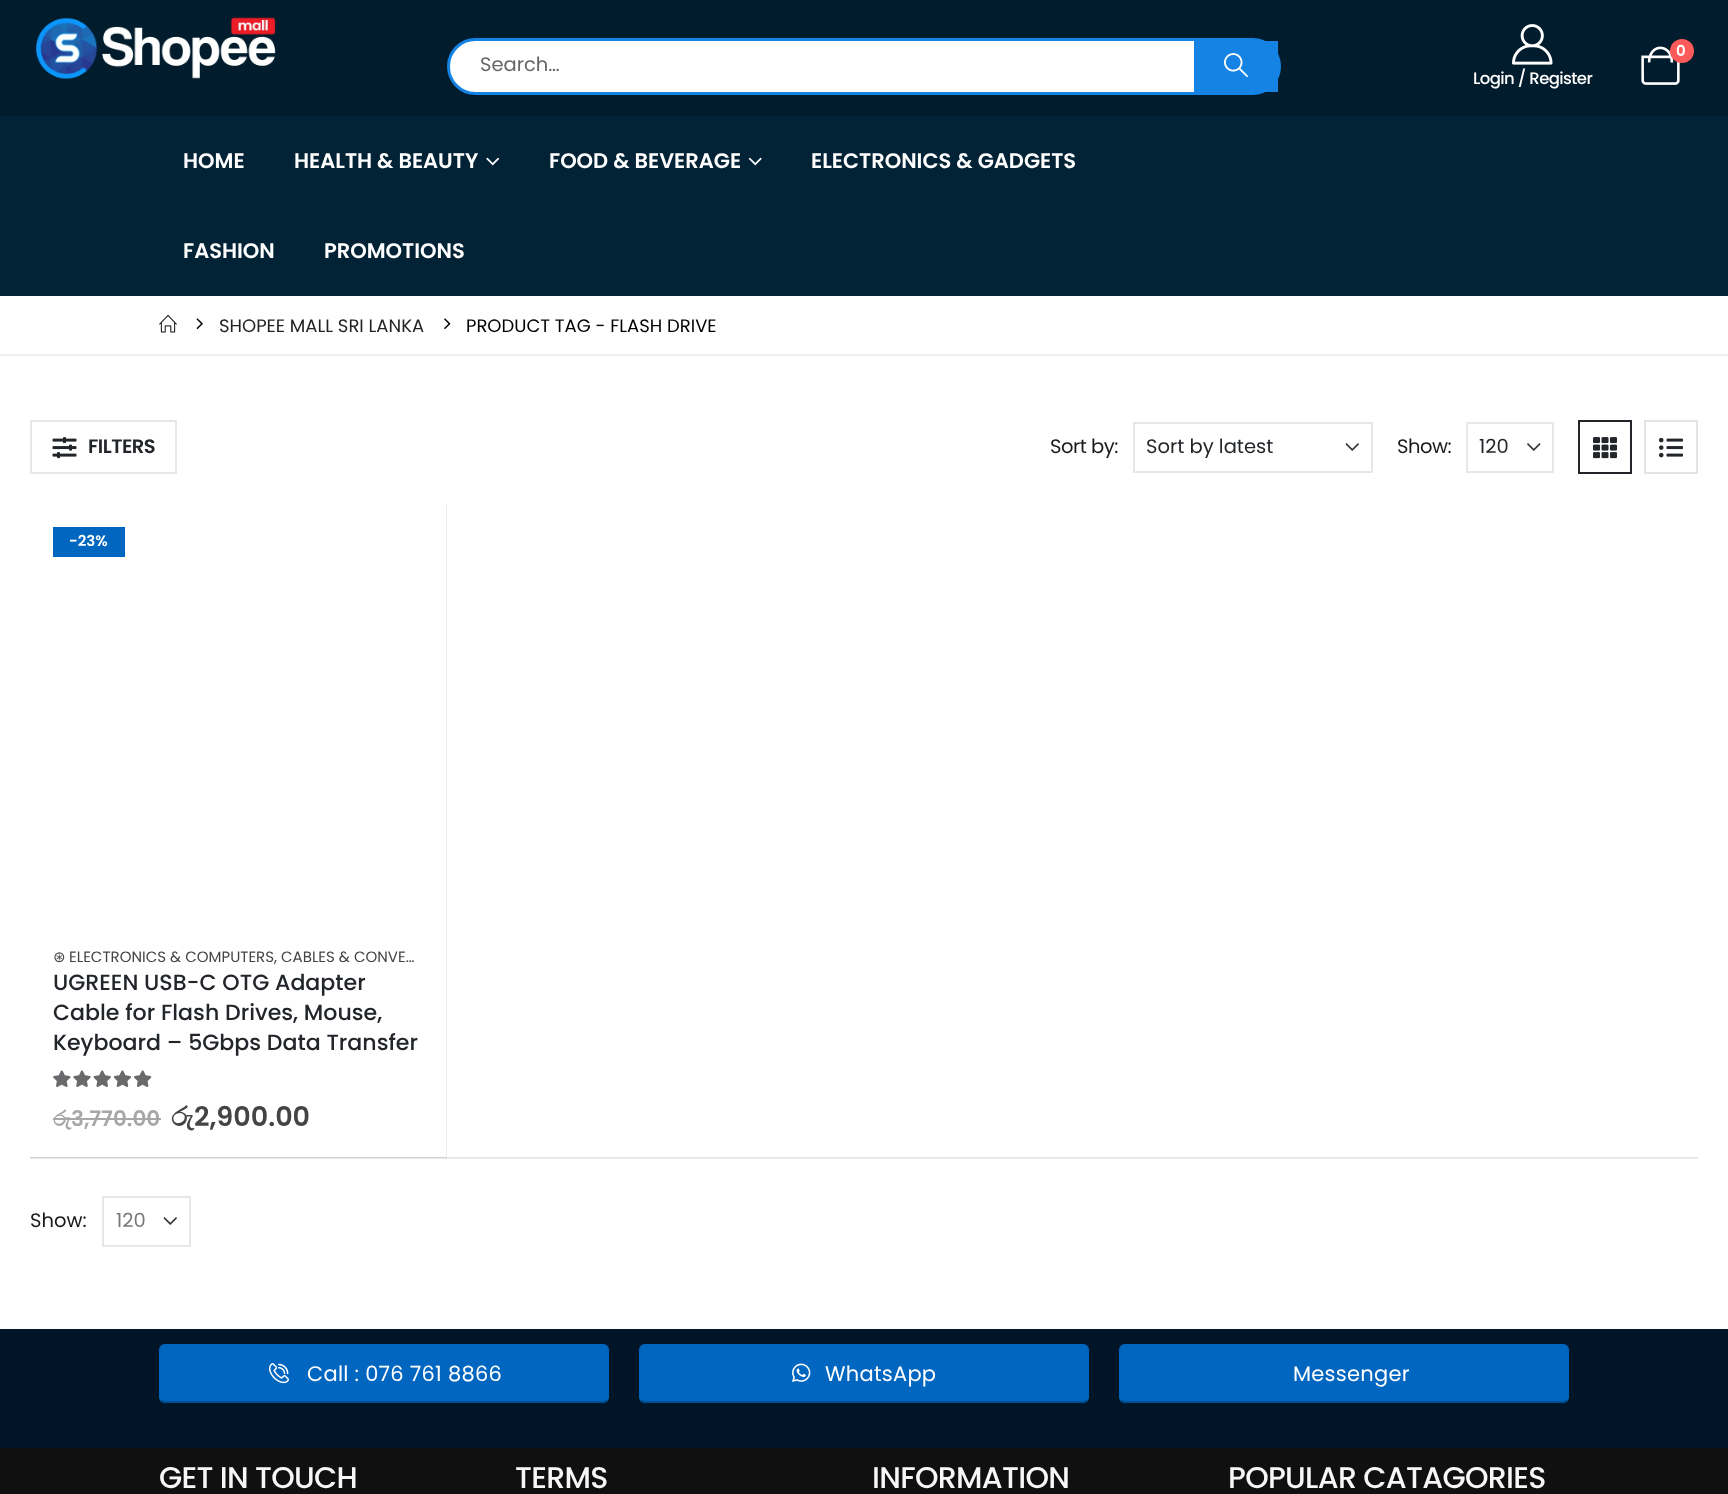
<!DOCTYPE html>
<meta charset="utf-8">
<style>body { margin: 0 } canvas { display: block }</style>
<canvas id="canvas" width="1728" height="1494"></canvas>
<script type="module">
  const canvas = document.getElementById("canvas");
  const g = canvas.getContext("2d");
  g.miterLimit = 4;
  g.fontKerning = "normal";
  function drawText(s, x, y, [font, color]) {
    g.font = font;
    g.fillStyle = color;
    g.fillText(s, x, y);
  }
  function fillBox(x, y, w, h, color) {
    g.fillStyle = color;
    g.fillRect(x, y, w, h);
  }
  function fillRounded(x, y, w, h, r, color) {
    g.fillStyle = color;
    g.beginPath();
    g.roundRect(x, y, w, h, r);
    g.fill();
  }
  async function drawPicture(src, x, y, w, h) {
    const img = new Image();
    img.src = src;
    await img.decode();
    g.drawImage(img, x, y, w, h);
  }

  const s1 = ["19.5px Poppins", "#656565"];
  const s2 = ["600 15px Poppins", "#FFFFFF"];
  const s3 = ["500 16.5px Poppins", "#FFFFFF"];
  const s4 = ["600 21px Poppins", "#FFFFFF"];
  const s5 = ["18px Poppins", "#232323"];
  const s6 = ["18px Poppins", "#000000"];
  const s7 = ["600 19.5px Poppins", "#222529"];
  const s8 = ["19.5px Poppins", "#191919"];
  const s9 = ["19.5px Poppins", "#222529"];
  const s10 = ["15px DejaVu Sans", "#444444"];
  const s11 = ["15px Poppins", "#444444"];
  const s12 = ["500 22.1px Poppins", "#222529"];
  const s13 = ["bold 21.5px FreeSerif", "#A7A7A7"];
  const s14 = ["600 21.5px Poppins", "#A7A7A7"];
  const s15 = ["bold 27px FreeSerif", "#444444"];
  const s16 = ["600 27px Poppins", "#444444"];
  const s17 = ["19.5px Poppins", "#777777"];
  const s18 = ["21px Poppins", "#FFFFFF"];
  const s19 = ["500 30px Poppins", "#F7F7F9"];

  fillBox(0, 0, 1728, 1494, "#FFFFFF");
  fillBox(0, 0, 1728, 116, "#011C2C");
  await drawPicture("pic1.png", 36, 17, 240, 63);
  g.fillStyle = "#FFFFFF";
  g.beginPath();
  g.roundRect(448.5, 39.5, 831, 54, 27);
  g.fill();
  g.strokeStyle = "#1483E3";
  g.lineWidth = 3;
  g.stroke();
  drawText("Search…", 480, 71, s1);
  fillBox(1194, 41, 84, 51, "#1483E3");
  await drawPicture("pic2.png", 1224, 53, 24, 25);
  await drawPicture("pic3.png", 1641, 46, 39, 39);
  g.fillStyle = "#FF5B5B";
  g.beginPath();
  g.arc(1682, 51, 12, 0, Math.PI * 2);
  g.fill();
  drawText("0", 1676, 56, s2);
  await drawPicture("pic4.png", 1512, 24, 41, 41);
  g.letterSpacing = "-0.6px";
  drawText("Login / Register", 1473, 84, s3);
  fillBox(0, 116, 1728, 180, "#022335");
  g.letterSpacing = "0px";
  drawText("HOME", 183, 168, s4);
  drawText("HEALTH & BEAUTY", 294, 168, s4);
  await drawPicture("pic5.png", 486, 157, 14, 9);
  drawText("FOOD & BEVERAGE", 549, 168, s4);
  await drawPicture("pic6.png", 748, 157, 14, 9);
  drawText("ELECTRONICS & GADGETS", 811, 168, s4);
  drawText("FASHION", 183, 258, s4);
  drawText("PROMOTIONS", 324, 258, s4);
  fillBox(0, 354, 1728, 2, "#EEEEEE");
  await drawPicture("pic7.png", 159, 314, 18, 19);
  await drawPicture("pic8.png", 196, 318, 7, 12);
  drawText("SHOPEE MALL SRI LANKA", 219, 332, s5);
  await drawPicture("pic9.png", 444, 318, 7, 11);
  drawText("PRODUCT TAG - FLASH DRIVE", 466, 332, s6);
  g.strokeStyle = "#E7E7E7";
  g.lineWidth = 2;
  g.strokeRect(31, 421, 145, 52);
  await drawPicture("pic10.png", 52, 437, 25, 22);
  g.letterSpacing = "-0.5px";
  drawText("FILTERS", 88, 453, s7);
  drawText("Sort by:", 1050, 453, s8);
  await drawPicture("pic11.png", 1345, 443, 14, 8);
  g.strokeRect(1134, 423, 238, 49);
  g.letterSpacing = "0px";
  drawText("Sort by latest", 1146, 453, s9);
  g.letterSpacing = "-0.5px";
  drawText("Show:", 1397, 453, s8);
  await drawPicture("pic12.png", 1527, 443, 14, 8);
  g.strokeRect(1467, 423, 86, 49);
  g.letterSpacing = "0px";
  drawText("120", 1479, 453, s9);
  g.strokeStyle = "#222529";
  g.strokeRect(1579, 421, 52, 52);
  await drawPicture("pic13.png", 1593, 437, 24, 22);
  g.strokeStyle = "#E4E4E4";
  g.strokeRect(1645, 421, 52, 52);
  await drawPicture("pic14.png", 1659, 437, 24, 21);
  fillBox(30, 1157, 1668, 2, "#E7E7E7");
  g.fillStyle = "#EBEBEB";
  g.beginPath();
  g.moveTo(447, 504);
  g.lineTo(447, 1158);
  g.lineTo(446, 1156);
  g.lineTo(446, 504);
  g.closePath();
  g.fill();
  g.fillStyle = "rgba(0, 0, 0, 0.08)";
  g.beginPath();
  g.moveTo(447, 1158);
  g.lineTo(30, 1158);
  g.lineTo(30, 1156);
  g.lineTo(446, 1156);
  g.closePath();
  g.fill();
  fillBox(30, 1156, 416, 1, "#FFFFFF");
  fillBox(53, 527, 72, 30, "#0066BF");
  drawText("-23%", 69, 546, s2);
  drawText("⊛", 53, 962, s10);
  drawText("ELECTRONICS & COMPUTERS, CABLES & CONVE…", 69, 962, s11);
  drawText("UGREEN USB-C OTG Adapter", 53, 990, s12);
  drawText("Cable for Flash Drives, Mouse,", 53, 1020, s12);
  drawText("Keyboard – 5Gbps Data Transfer", 53, 1050, s12);
  await drawPicture("pic15.png", 53, 1070, 98, 17);
  await drawPicture("pic16.png", 53, 1070, 99, 17);
  drawText("රු", 53, 1126, s13);
  drawText("3,770.00", 71, 1126, s14);
  fillBox(53, 1118, 18, 2, "#A7A7A7");
  fillBox(71, 1118, 90, 2, "#A7A7A7");
  drawText("රු", 171, 1126, s15);
  drawText("2,900.00", 194, 1126, s16);
  drawText("Show:", 30, 1227, s8);
  await drawPicture("pic11.png", 163, 1217, 14, 8);
  g.strokeStyle = "#E7E7E7";
  g.strokeRect(103, 1197, 87, 49);
  drawText("120", 116, 1227, s17);
  fillBox(0, 1329, 1728, 119, "#001527");
  fillRounded(159, 1344, 450, 59, 6, "#0066BF");
  g.beginPath();
  g.moveTo(606.5, 1400);
  g.bezierCurveTo(605.5, 1401, 604.5, 1402, 603, 1402);
  g.lineTo(165, 1402);
  g.bezierCurveTo(163.5, 1402, 162.5, 1401, 161.5, 1400);
  g.strokeStyle = "#004B8C";
  g.lineWidth = 1.5;
  g.stroke();
  g.beginPath();
  g.moveTo(161.5, 1400);
  g.bezierCurveTo(160.5, 1399, 160, 1398, 160, 1396.5);
  g.lineTo(160, 1350);
  g.bezierCurveTo(160, 1348.5, 160.5, 1347.5, 161.5, 1346.5);
  g.bezierCurveTo(162.5, 1345.5, 163.5, 1345, 165, 1345);
  g.lineTo(603, 1345);
  g.bezierCurveTo(604.5, 1345, 605.5, 1345.5, 606.5, 1346.5);
  g.bezierCurveTo(607.5, 1347.5, 608, 1348.5, 608, 1350);
  g.lineTo(608, 1396.5);
  g.bezierCurveTo(608, 1398, 607.5, 1399, 606.5, 1400);
  g.strokeStyle = "#0066BF";
  g.stroke();
  await drawPicture("pic17.png", 269, 1363, 20, 21);
  g.letterSpacing = "0.25px";
  drawText("Call : 076 761 8866", 307, 1381, s18);
  fillRounded(639, 1344, 450, 59, 6, "#0066BF");
  g.beginPath();
  g.moveTo(1086.5, 1400);
  g.bezierCurveTo(1085.5, 1401, 1084.5, 1402, 1083, 1402);
  g.lineTo(645, 1402);
  g.bezierCurveTo(643.5, 1402, 642.5, 1401, 641.5, 1400);
  g.strokeStyle = "#004B8C";
  g.stroke();
  g.beginPath();
  g.moveTo(641.5, 1400);
  g.bezierCurveTo(640.5, 1399, 640, 1398, 640, 1396.5);
  g.lineTo(640, 1350);
  g.bezierCurveTo(640, 1348.5, 640.5, 1347.5, 641.5, 1346.5);
  g.bezierCurveTo(642.5, 1345.5, 643.5, 1345, 645, 1345);
  g.lineTo(1083, 1345);
  g.bezierCurveTo(1084.5, 1345, 1085.5, 1345.5, 1086.5, 1346.5);
  g.bezierCurveTo(1087.5, 1347.5, 1088, 1348.5, 1088, 1350);
  g.lineTo(1088, 1396.5);
  g.bezierCurveTo(1088, 1398, 1087.5, 1399, 1086.5, 1400);
  g.strokeStyle = "#0066BF";
  g.stroke();
  await drawPicture("pic18.png", 792, 1363, 19, 19);
  drawText("WhatsApp", 825, 1381, s18);
  fillRounded(1119, 1344, 450, 59, 6, "#0066BF");
  g.beginPath();
  g.moveTo(1566.5, 1400);
  g.bezierCurveTo(1565.5, 1401, 1564.5, 1402, 1563, 1402);
  g.lineTo(1125, 1402);
  g.bezierCurveTo(1123.5, 1402, 1122.5, 1401, 1121.5, 1400);
  g.strokeStyle = "#004B8C";
  g.stroke();
  g.beginPath();
  g.moveTo(1121.5, 1400);
  g.bezierCurveTo(1120.5, 1399, 1120, 1398, 1120, 1396.5);
  g.lineTo(1120, 1350);
  g.bezierCurveTo(1120, 1348.5, 1120.5, 1347.5, 1121.5, 1346.5);
  g.bezierCurveTo(1122.5, 1345.5, 1123.5, 1345, 1125, 1345);
  g.lineTo(1563, 1345);
  g.bezierCurveTo(1564.5, 1345, 1565.5, 1345.5, 1566.5, 1346.5);
  g.bezierCurveTo(1567.5, 1347.5, 1568, 1348.5, 1568, 1350);
  g.lineTo(1568, 1396.5);
  g.bezierCurveTo(1568, 1398, 1567.5, 1399, 1566.5, 1400);
  g.strokeStyle = "#0066BF";
  g.stroke();
  drawText("Messenger", 1293, 1381, s18);
  fillBox(0, 1448, 1728, 46, "#101010");
  g.letterSpacing = "-0.7px";
  drawText("GET IN TOUCH", 159, 1488, s19);
  drawText("TERMS", 515, 1488, s19);
  drawText("INFORMATION", 872, 1488, s19);
  drawText("POPULAR CATAGORIES", 1228, 1488, s19);
</script>
